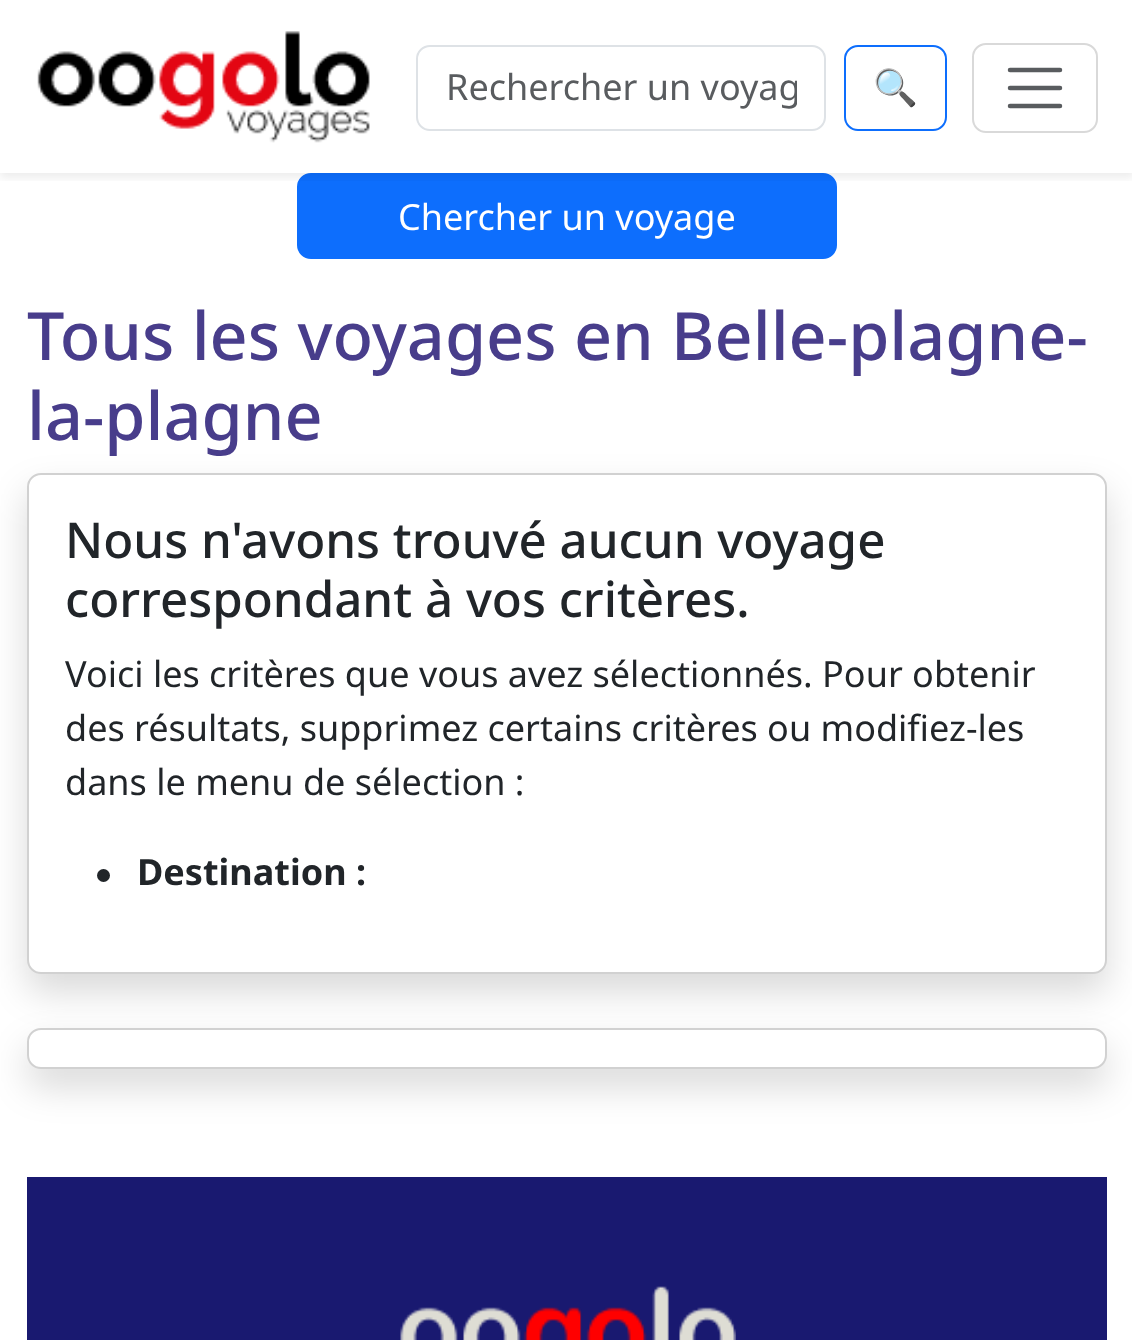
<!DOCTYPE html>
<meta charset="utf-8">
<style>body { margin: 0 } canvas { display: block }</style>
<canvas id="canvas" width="1132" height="1340"></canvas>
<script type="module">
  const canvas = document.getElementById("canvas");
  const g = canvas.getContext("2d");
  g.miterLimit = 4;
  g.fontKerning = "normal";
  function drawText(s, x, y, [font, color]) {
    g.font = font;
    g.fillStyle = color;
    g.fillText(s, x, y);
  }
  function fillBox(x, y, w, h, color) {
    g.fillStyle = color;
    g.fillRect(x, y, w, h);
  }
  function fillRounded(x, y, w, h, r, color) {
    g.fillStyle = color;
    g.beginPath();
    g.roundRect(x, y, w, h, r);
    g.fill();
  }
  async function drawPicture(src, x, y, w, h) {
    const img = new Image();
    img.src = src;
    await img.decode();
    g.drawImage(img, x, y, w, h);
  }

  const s1 = ["36px Noto Sans", "#595C5F"];
  const s2 = ["36px Noto Color Emoji", "#0D6EFD"];
  const s3 = ["36px Noto Sans", "#FFFFFF"];
  const s4 = ["500 66.5px Noto Sans", "#483D8B"];
  const s5 = ["500 49.25px Noto Sans", "#212529"];
  const s6 = ["36px Noto Sans", "#212529"];
  const s7 = ["bold 36px Noto Sans", "#212529"];

  fillBox(0, 0, 1132, 1340, "#FFFFFF");
  g.fillStyle = "#0D6EFD";
  g.beginPath();
  g.roundRect(298, 174, 538, 84, 13);
  g.fill();
  g.strokeStyle = "#0D6EFD";
  g.lineWidth = 2;
  g.stroke();
  g.save();
  g.beginPath();
  g.rect(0, 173, 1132, 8);
  g.clip();
  g.fillStyle = "rgba(0, 0, 0, 0.07)";
  g.filter = "blur(4.5px)";
  g.beginPath();
  g.rect(0, 5, 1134, 173);
  g.fill();
  g.filter = "none";
  g.restore();
  await drawPicture("pic1.png", 37, 31, 333, 112);
  g.beginPath();
  g.roundRect(417, 46, 408, 84, 13);
  g.strokeStyle = "#DEE2E6";
  g.stroke();
  g.save();
  g.beginPath();
  g.rect(446, 63, 351, 50);
  g.clip();
  drawText("Rechercher un voyag", 446, 100, s1);
  g.restore();
  g.beginPath();
  g.roundRect(845, 46, 101, 84, 13);
  g.strokeStyle = "#0D6EFD";
  g.stroke();
  drawText("🔍", 873, 100, s2);
  g.beginPath();
  g.roundRect(973, 44, 124, 88, 13);
  g.strokeStyle = "#D9D9D9";
  g.stroke();
  g.beginPath();
  g.moveTo(1010, 70);
  g.lineTo(1060, 70);
  g.moveTo(1010, 88);
  g.lineTo(1060, 88);
  g.moveTo(1010, 106);
  g.lineTo(1060, 106);
  g.strokeStyle = "#595C5F";
  g.lineWidth = 4.5;
  g.lineCap = "round";
  g.stroke();
  drawText("Chercher un voyage", 398, 230, s3);
  drawText("Tous les voyages en Belle-plagne-", 27, 360, s4);
  drawText("la-plagne", 27, 440, s4);
  g.fillStyle = "rgba(0, 0, 0, 0.15)";
  g.filter = "blur(18px)";
  g.beginPath();
  g.roundRect(27, 491, 1080, 501, 14);
  g.fill();
  g.filter = "none";
  fillRounded(27, 473, 1080, 501, 14, "#FFFFFF");
  g.beginPath();
  g.roundRect(28, 474, 1078, 499, 13);
  g.strokeStyle = "rgba(0, 0, 0, 0.18)";
  g.lineWidth = 2;
  g.stroke();
  drawText("Nous n'avons trouvé aucun voyage", 65, 558, s5);
  drawText("correspondant à vos critères.", 65, 617, s5);
  drawText("Voici les critères que vous avez sélectionnés. Pour obtenir", 65, 687, s6);
  drawText("des résultats, supprimez certains critères ou modifiez-les", 65, 741, s6);
  drawText("dans le menu de sélection :", 65, 795, s6);
  g.beginPath();
  g.arc(103.5, 875.5, 6.5, 0, Math.PI * 2);
  g.fill();
  drawText("Destination :", 137, 885, s7);
  g.fillStyle = "rgba(0, 0, 0, 0.15)";
  g.filter = "blur(18px)";
  g.beginPath();
  g.roundRect(27, 1046, 1080, 41, 14);
  g.fill();
  g.filter = "none";
  fillRounded(27, 1028, 1080, 41, 14, "#FFFFFF");
  g.beginPath();
  g.roundRect(28, 1029, 1078, 39, 13);
  g.stroke();
  fillBox(27, 1177, 1080, 163, "#191970");
  await drawPicture("pic2.png", 400, 1286, 336, 54);
</script>
